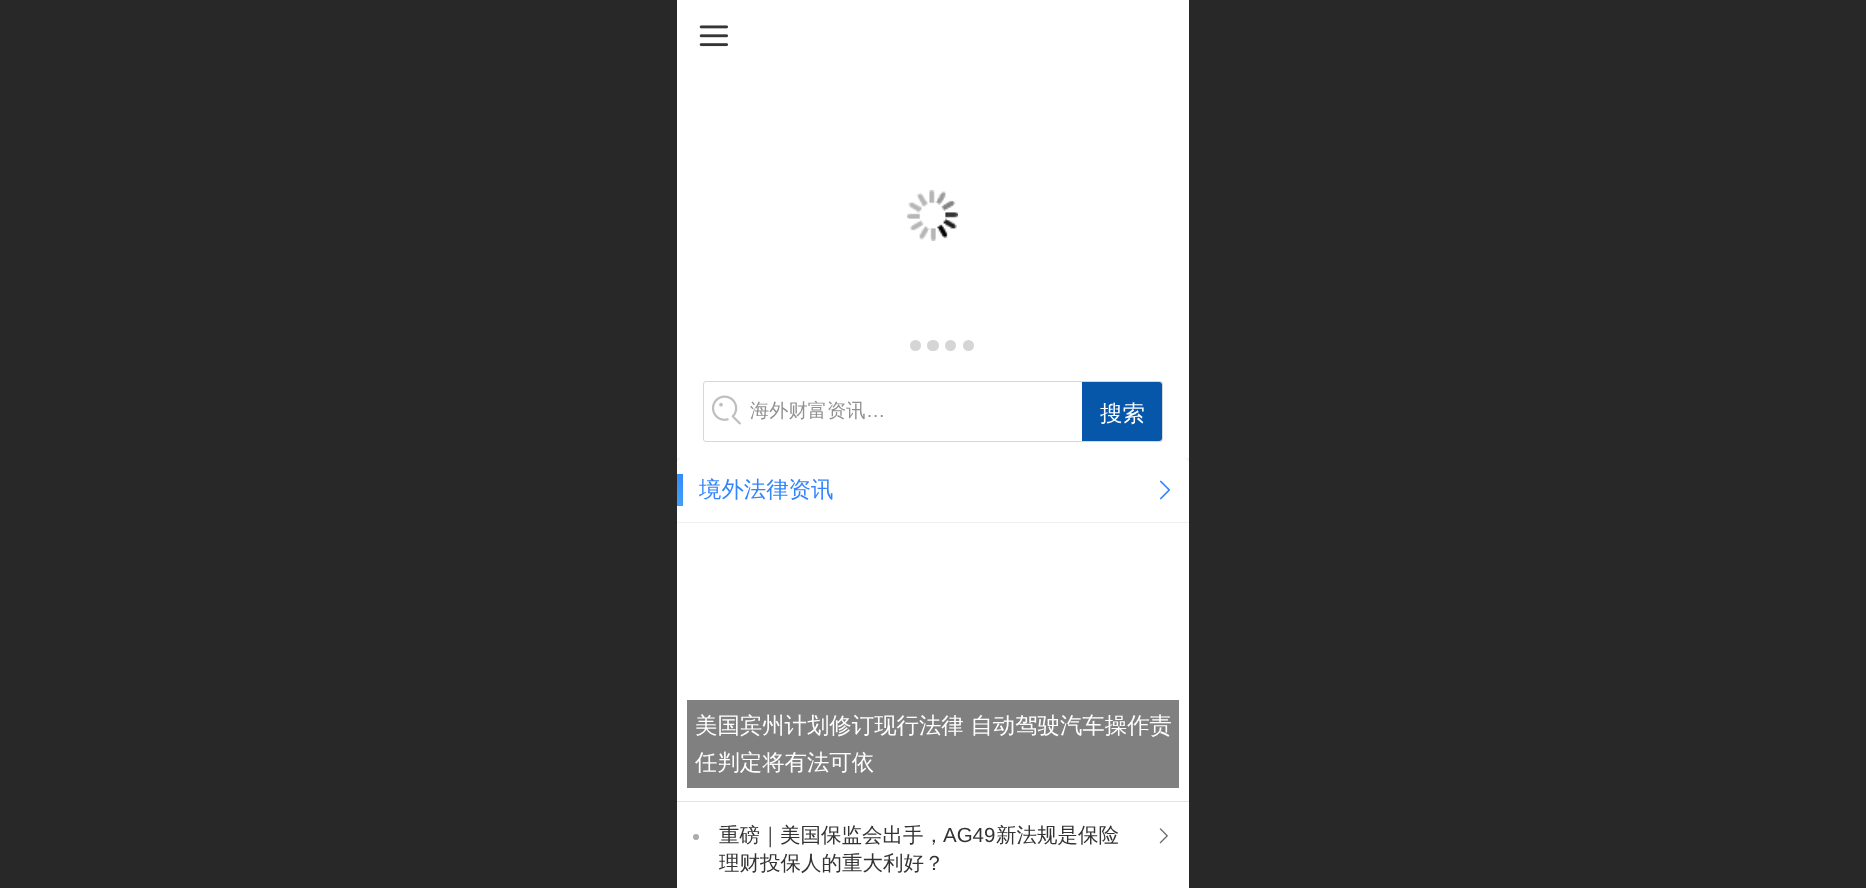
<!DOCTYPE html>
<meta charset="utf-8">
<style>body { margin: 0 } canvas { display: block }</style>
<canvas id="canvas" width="1866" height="888"></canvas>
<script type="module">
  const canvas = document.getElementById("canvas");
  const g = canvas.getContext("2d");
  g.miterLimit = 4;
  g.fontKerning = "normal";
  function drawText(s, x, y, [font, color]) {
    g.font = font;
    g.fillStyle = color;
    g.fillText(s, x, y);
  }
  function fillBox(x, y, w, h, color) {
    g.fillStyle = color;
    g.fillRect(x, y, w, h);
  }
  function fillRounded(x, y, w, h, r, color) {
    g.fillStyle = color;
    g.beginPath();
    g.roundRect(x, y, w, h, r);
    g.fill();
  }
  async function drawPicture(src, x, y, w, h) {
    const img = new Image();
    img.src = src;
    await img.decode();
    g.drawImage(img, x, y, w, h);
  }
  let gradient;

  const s1 = ["500 19.25px WenQuanYi Zen Hei", "#919191"];
  const s2 = ["19.25px Liberation Sans", "#919191"];
  const s3 = ["500 22.4px WenQuanYi Zen Hei", "#FFFFFF"];
  const s4 = ["500 22.4px WenQuanYi Zen Hei", "#3285FF"];
  const s5 = ["500 20.5px WenQuanYi Zen Hei", "#333333"];
  const s6 = ["20.5px Liberation Sans", "#333333"];

  fillBox(0, 0, 1866, 888, "#FFFFFF");
  fillBox(0, 0, 677, 888, "#282828");
  await drawPicture("pic1.png", 699, 25, 29, 22);
  await drawPicture("pic2.png", 907, 190, 51, 51);
  g.fillStyle = "#D5D5D5";
  g.beginPath();
  g.arc(915.5, 345.5, 5.5, 0, Math.PI * 2);
  g.fill();
  fillRounded(927, 340, 12, 11, 5.5, "#D5D5D5");
  g.beginPath();
  g.arc(950.5, 345.5, 5.5, 0, Math.PI * 2);
  g.fill();
  g.beginPath();
  g.arc(968.5, 345.5, 5.5, 0, Math.PI * 2);
  g.fill();
  g.beginPath();
  g.roundRect(703.5, 381.5, 459, 60, 2.5);
  g.strokeStyle = "#D7D7D7";
  g.stroke();
  await drawPicture("pic3.png", 711, 395, 30, 30);
  drawText("海外财富资讯", 750, 417, s1);
  drawText("…", 866, 417, s2);
  g.fillStyle = "#0657A9";
  g.beginPath();
  g.roundRect(1082, 382, 80, 59, [0, 3, 3, 0]);
  g.fill();
  drawText("搜索", 1100, 421, s3);
  fillBox(677, 458, 512, 6, "#F5F5F5");
  g.fillStyle = "#FFFFFF";
  g.beginPath();
  g.roundRect(677, 458, 512, 65, [6, 6, 0, 0]);
  g.fill();
  fillBox(677, 522, 512, 1, "#F0F0F0");
  gradient = g.createLinearGradient(643, 506, 685, 474);
  gradient.addColorStop(0, "#55C2E7");
  gradient.addColorStop(1, "#3386FF");
  g.fillStyle = gradient;
  g.fillRect(677, 474, 6, 32);
  drawText("境外法律资讯", 699, 497, s4);
  await drawPicture("pic4.png", 1159, 480, 11, 20);
  fillBox(687, 700, 492, 88, "#808080");
  drawText("美国宾州计划修订现行法律 自动驾驶汽车操作责", 695, 733, s3);
  drawText("任判定将有法可依", 695, 770, s3);
  fillBox(677, 801, 512, 1, "#E5E5E5");
  g.fillStyle = "#ABABAB";
  g.beginPath();
  g.arc(696, 837, 3, 0, Math.PI * 2);
  g.fill();
  drawText("重磅｜美国保监会出手，", 719, 842, s5);
  drawText("AG49", 943, 842, s6);
  drawText("新法规是保险", 996, 842, s5);
  g.save();
  g.beginPath();
  g.rect(719, 821, 419, 56);
  g.clip();
  drawText("理财投保人的重大利好？", 719, 870, s5);
  g.restore();
  await drawPicture("pic5.png", 1159, 828, 9, 16);
  fillBox(1189, 0, 677, 888, "#282828");
</script>
